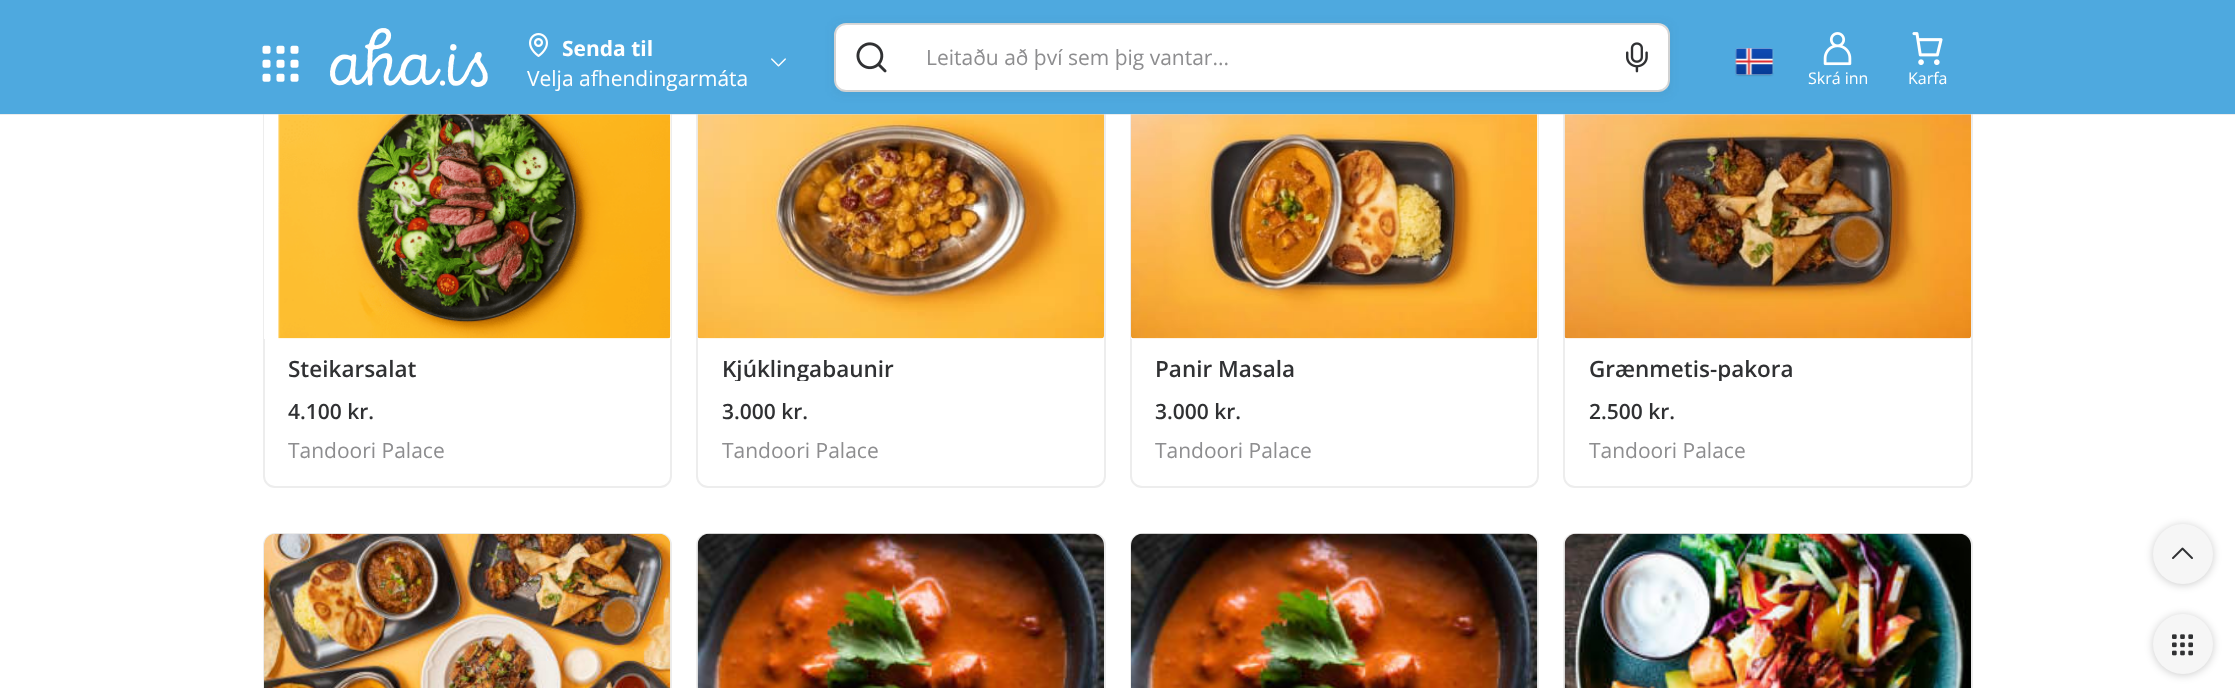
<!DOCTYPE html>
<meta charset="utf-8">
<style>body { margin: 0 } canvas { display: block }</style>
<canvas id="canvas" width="2235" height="688"></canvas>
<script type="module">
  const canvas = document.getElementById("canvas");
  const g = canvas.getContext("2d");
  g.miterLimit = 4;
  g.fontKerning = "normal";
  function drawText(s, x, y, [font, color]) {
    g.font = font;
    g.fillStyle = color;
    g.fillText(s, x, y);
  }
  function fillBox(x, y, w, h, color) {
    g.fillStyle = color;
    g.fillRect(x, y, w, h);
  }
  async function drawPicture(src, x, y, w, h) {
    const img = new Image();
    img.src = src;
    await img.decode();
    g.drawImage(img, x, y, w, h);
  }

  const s1 = ["bold 21px Open Sans", "#FFFFFF"];
  const s2 = ["21px Open Sans", "#FFFFFF"];
  const s3 = ["21px Open Sans", "#8D8D8F"];
  const s4 = ["16px Open Sans", "#FFFFFF"];
  const s5 = ["600 22.5px Open Sans", "#303133"];
  const s6 = ["600 21px Open Sans", "#303133"];

  fillBox(0, 0, 2235, 688, "#FFFFFF");
  g.beginPath();
  g.roundRect(264, 84, 407, 403, 11);
  g.strokeStyle = "#EDEDED";
  g.lineWidth = 2;
  g.stroke();
  g.beginPath();
  g.roundRect(697, 84, 408, 403, 11);
  g.stroke();
  g.beginPath();
  g.roundRect(1131, 84, 407, 403, 11);
  g.stroke();
  g.beginPath();
  g.roundRect(1564, 84, 408, 403, 11);
  g.stroke();
  fillBox(0, 0, 2235, 114, "#4EA9DF");
  await drawPicture("pic1.png", 262, 45, 37, 37);
  await drawPicture("pic2.png", 330, 28, 158, 59);
  await drawPicture("pic3.png", 529, 33, 19, 24);
  drawText("Senda til", 562, 56, s1);
  drawText("Velja afhendingarmáta", 527, 86, s2);
  await drawPicture("pic4.png", 771, 58, 15, 9);
  g.beginPath();
  g.roundRect(835, 24, 834, 67, 11);
  g.fill();
  g.strokeStyle = "#DADADA";
  g.stroke();
  g.save();
  g.beginPath();
  g.moveTo(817, 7);
  g.lineTo(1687, 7);
  g.lineTo(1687, 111);
  g.lineTo(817, 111);
  g.closePath();
  g.moveTo(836, 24);
  g.lineTo(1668, 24);
  g.lineTo(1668, 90);
  g.lineTo(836, 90);
  g.closePath();
  g.clip("evenodd");
  g.fillStyle = "rgba(48, 49, 51, 0.1)";
  g.filter = "blur(6px)";
  g.beginPath();
  g.rect(836, 26, 832, 66);
  g.fill();
  g.filter = "none";
  g.restore();
  await drawPicture("pic5.png", 856, 42, 31, 31);
  drawText("Leitaðu að því sem þig vantar...", 926, 65, s3);
  await drawPicture("pic6.png", 1626, 42, 22, 31);
  await drawPicture("pic7.png", 1735, 48, 39, 29);
  await drawPicture("pic8.png", 1823, 32, 29, 34);
  drawText("Skrá inn", 1808, 84, s4);
  await drawPicture("pic9.png", 1912, 32, 31, 33);
  drawText("Karfa", 1908, 84, s4);
  fillBox(264, 114, 407, 225, "#FFFFFF");
  await drawPicture("pic10.png", 278, 114, 393, 225);
  await drawPicture("pic11.png", 697, 114, 407, 225);
  fillBox(1131, 114, 407, 225, "#FFFFFF");
  await drawPicture("pic12.png", 1131, 114, 407, 225);
  await drawPicture("pic13.png", 1564, 114, 407, 225);
  fillBox(0, 114, 2235, 1, "rgba(218, 218, 218, 0.5)");
  drawText("Steikarsalat", 288, 377, s5);
  drawText("4.100 kr.", 288, 419, s6);
  drawText("Tandoori Palace", 288, 458, s3);
  g.save();
  g.beginPath();
  g.rect(722, 357, 358, 24);
  g.clip();
  drawText("Kjúklingabaunir", 722, 377, s5);
  g.restore();
  drawText("3.000 kr.", 722, 419, s6);
  drawText("Tandoori Palace", 722, 458, s3);
  drawText("Panir Masala", 1155, 377, s5);
  drawText("3.000 kr.", 1155, 419, s6);
  drawText("Tandoori Palace", 1155, 458, s3);
  g.save();
  g.beginPath();
  g.rect(1589, 357, 358, 24);
  g.clip();
  drawText("Grænmetis-pakora", 1589, 377, s5);
  g.restore();
  drawText("2.500 kr.", 1589, 419, s6);
  drawText("Tandoori Palace", 1589, 458, s3);
  g.beginPath();
  g.roundRect(264, 534, 407, 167, 11);
  g.strokeStyle = "#EDEDED";
  g.stroke();
  await drawPicture("pic14.png", 264, 533, 407, 155);
  g.beginPath();
  g.roundRect(697, 534, 408, 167, 11);
  g.stroke();
  await drawPicture("pic15.png", 697, 533, 407, 155);
  g.beginPath();
  g.roundRect(1131, 534, 407, 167, 11);
  g.stroke();
  g.fillStyle = "#FFFFFF";
  g.beginPath();
  g.moveTo(1143, 534);
  g.lineTo(1526, 534);
  g.bezierCurveTo(1532.5, 534, 1538, 539.5, 1538, 546);
  g.lineTo(1538, 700);
  g.lineTo(1131, 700);
  g.lineTo(1131, 546);
  g.bezierCurveTo(1131, 539.5, 1136.5, 534, 1143, 534);
  g.closePath();
  g.fill();
  await drawPicture("pic16.png", 1131, 533, 407, 155);
  g.beginPath();
  g.roundRect(1564, 534, 408, 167, 11);
  g.stroke();
  await drawPicture("pic17.png", 1564, 533, 407, 155);
  g.fillStyle = "rgba(0, 0, 0, 0.2)";
  g.filter = "blur(4px)";
  g.beginPath();
  g.roundRect(2153, 525, 60, 60, 30);
  g.fill();
  g.filter = "none";
  g.fillStyle = "#F6F6F6";
  g.beginPath();
  g.arc(2183, 554, 30, 0, Math.PI * 2);
  g.fill();
  await drawPicture("pic18.png", 2172, 547, 21, 12);
  g.fillStyle = "rgba(0, 0, 0, 0.2)";
  g.filter = "blur(4px)";
  g.beginPath();
  g.roundRect(2153, 615, 60, 60, 30);
  g.fill();
  g.filter = "none";
  g.fillStyle = "#F6F6F6";
  g.beginPath();
  g.arc(2183, 644, 30, 0, Math.PI * 2);
  g.fill();
  await drawPicture("pic19.png", 2172, 634, 21, 22);
</script>
